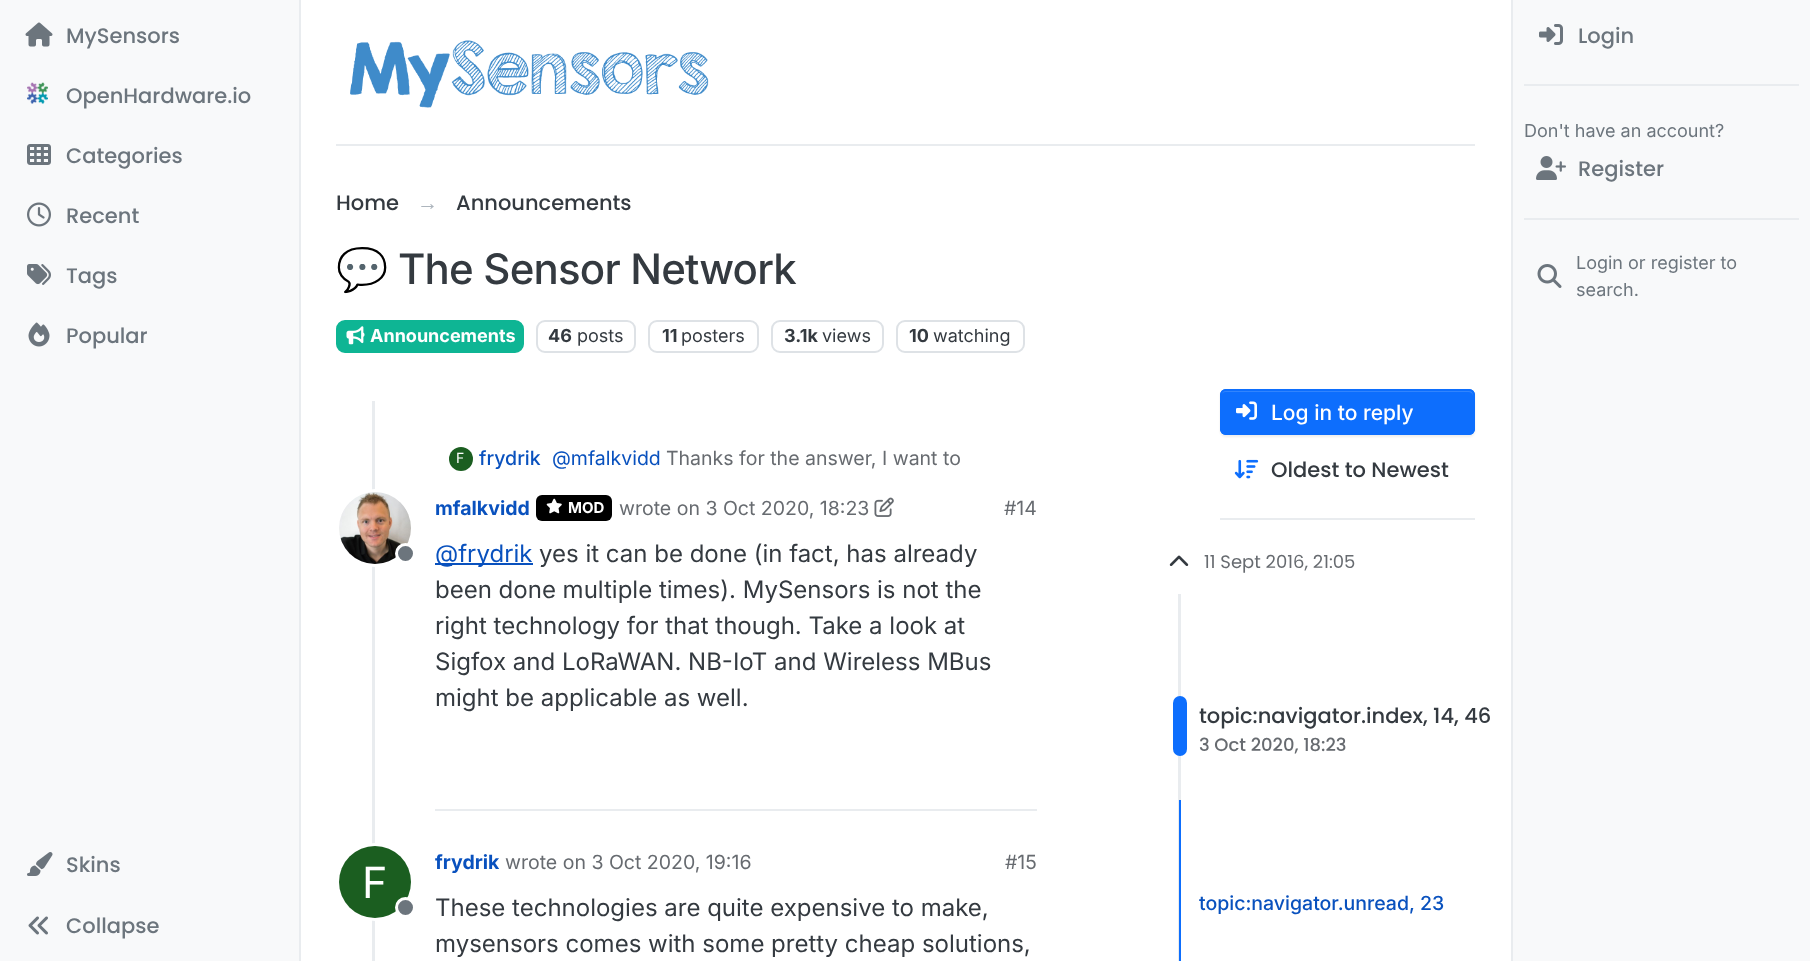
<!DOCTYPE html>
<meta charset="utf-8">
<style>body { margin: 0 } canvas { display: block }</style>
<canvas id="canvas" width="1810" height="961"></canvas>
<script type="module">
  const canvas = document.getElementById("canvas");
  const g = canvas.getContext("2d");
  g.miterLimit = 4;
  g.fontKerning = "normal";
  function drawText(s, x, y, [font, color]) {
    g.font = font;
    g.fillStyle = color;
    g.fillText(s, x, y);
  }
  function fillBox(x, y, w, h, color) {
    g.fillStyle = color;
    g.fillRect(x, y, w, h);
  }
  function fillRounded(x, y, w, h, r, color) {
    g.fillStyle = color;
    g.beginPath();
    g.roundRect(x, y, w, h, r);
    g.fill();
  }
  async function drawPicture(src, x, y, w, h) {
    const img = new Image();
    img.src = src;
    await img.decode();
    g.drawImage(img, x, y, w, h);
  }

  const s1 = ["500 21px Poppins", "#6C757D"];
  const s2 = ["500 21px Poppins", "#343A40"];
  const s3 = ["21px Liberation Sans", "#ADB5BD"];
  const s4 = ["42px Noto Color Emoji", "#343A40"];
  const s5 = ["500 42px Inter", "#343A40"];
  const s6 = ["bold 18px Inter", "#FFFFFF"];
  const s7 = ["bold 18px Inter", "#343A40"];
  const s8 = ["18px Inter", "#343A40"];
  const s9 = ["14px Inter", "#FFFFFF"];
  const s10 = ["500 19.5px Inter", "#0951BE"];
  const s11 = ["19.5px Inter", "#0951BE"];
  const s12 = ["19.5px Inter", "#676B70"];
  const s13 = ["bold 19.5px Inter", "#0951BE"];
  const s14 = ["bold 15px Inter", "#FFFFFF"];
  const s15 = ["24px Inter", "#0951BE"];
  const s16 = ["24px Inter", "#343A40"];
  const s17 = ["43px Inter", "#FFFFFF"];
  const s18 = ["500 21px Inter", "#FFFFFF"];
  const s19 = ["18px Poppins", "#676B70"];
  const s20 = ["500 18px Poppins", "#676B70"];
  const s21 = ["18px Inter", "#6C757D"];

  fillBox(0, 0, 1810, 961, "#FFFFFF");
  fillBox(0, 0, 299, 961, "#F8F9FA");
  fillBox(299, 0, 2, 961, "#E9ECEF");
  await drawPicture("pic1.png", 25, 22, 28, 25);
  drawText("MySensors", 66, 43, s1);
  await drawPicture("pic2.png", 27, 82, 21, 22);
  drawText("OpenHardware.io", 66, 103, s1);
  await drawPicture("pic3.png", 27, 144, 24, 21);
  drawText("Categories", 66, 163, s1);
  await drawPicture("pic4.png", 27, 202, 24, 25);
  drawText("Recent", 66, 223, s1);
  await drawPicture("pic5.png", 27, 264, 24, 21);
  drawText("Tags", 66, 283, s1);
  await drawPicture("pic6.png", 28, 322, 22, 25);
  drawText("Popular", 66, 343, s1);
  await drawPicture("pic7.png", 27, 852, 26, 24);
  drawText("Skins", 66, 872, s1);
  await drawPicture("pic8.png", 28, 916, 20, 19);
  drawText("Collapse", 66, 933, s1);
  fillBox(336, 144, 1139, 2, "#E9ECEF");
  await drawPicture("pic9.png", 350, 40, 359, 68);
  drawText("Home", 336, 210, s2);
  drawText("→", 417, 210, s3);
  drawText("Announcements", 456, 210, s2);
  g.letterSpacing = "-0.8px";
  drawText("💬", 336, 284, s4);
  drawText("The Sensor Network", 398, 284, s5);
  g.fillStyle = "#0EB594";
  g.beginPath();
  g.roundRect(337, 321, 186, 31, 8);
  g.fill();
  g.strokeStyle = "#0EB594";
  g.lineWidth = 2;
  g.stroke();
  await drawPicture("pic10.png", 346, 326, 19, 19);
  g.letterSpacing = "0px";
  drawText("Announcements", 370, 342, s6);
  g.beginPath();
  g.roundRect(537, 321, 98, 31, 8);
  g.strokeStyle = "#DEE2E6";
  g.stroke();
  drawText("46", 548, 342, s7);
  drawText("posts", 577, 342, s8);
  g.beginPath();
  g.roundRect(649, 321, 109, 31, 8);
  g.stroke();
  drawText("11", 662, 342, s7);
  drawText("posters", 681, 342, s8);
  g.beginPath();
  g.roundRect(772, 321, 111, 31, 8);
  g.stroke();
  drawText("3.1k", 784, 342, s7);
  drawText("views", 822, 342, s8);
  g.beginPath();
  g.roundRect(897, 321, 127, 31, 8);
  g.stroke();
  drawText("10", 909, 342, s7);
  drawText("watching", 933, 342, s8);
  fillBox(372, 401, 3, 560, "#E9ECEF");
  g.fillStyle = "#1B5E20";
  g.beginPath();
  g.arc(461, 459, 12, 0, Math.PI * 2);
  g.fill();
  drawText("F", 456, 463, s9);
  drawText("frydrik", 479, 465, s10);
  drawText("@mfalkvidd", 552, 465, s11);
  drawText("Thanks for the answer, I want to", 666, 465, s12);
  g.beginPath();
  g.arc(375, 528, 37.5, 0, Math.PI * 2);
  g.strokeStyle = "#FFFFFF";
  g.lineWidth = 3;
  g.stroke();
  await drawPicture("pic11.png", 339, 492, 72, 72);
  g.fillStyle = "#6C757D";
  g.beginPath();
  g.arc(405.5, 553.5, 9, 0, Math.PI * 2);
  g.fill();
  g.stroke();
  drawText("mfalkvidd", 435, 515, s13);
  fillRounded(536, 495, 76, 26, 6, "#000000");
  await drawPicture("pic12.png", 546, 498, 16, 16);
  drawText("MOD", 568, 513, s14);
  drawText("wrote on 3 Oct 2020, 18:23", 619, 515, s12);
  await drawPicture("pic13.png", 874, 497, 20, 20);
  drawText("#14", 1004, 515, s12);
  fillBox(435, 563, 98, 2, "#0951BE");
  drawText("@frydrik", 435, 562, s15);
  drawText("yes it can be done (in fact, has already", 539, 562, s16);
  drawText("been done multiple times). MySensors is not the", 435, 598, s16);
  drawText("right technology for that though. Take a look at", 435, 634, s16);
  drawText("Sigfox and LoRaWAN. NB-IoT and Wireless MBus", 435, 670, s16);
  drawText("might be applicable as well.", 435, 706, s16);
  fillBox(435, 809, 602, 2, "#E9ECEF");
  g.beginPath();
  g.arc(375, 882, 37.5, 0, Math.PI * 2);
  g.stroke();
  g.fillStyle = "#1B5E20";
  g.beginPath();
  g.arc(375, 882, 36, 0, Math.PI * 2);
  g.fill();
  drawText("F", 362, 898, s17);
  g.fillStyle = "#6C757D";
  g.beginPath();
  g.arc(405.5, 907.5, 9, 0, Math.PI * 2);
  g.fill();
  g.stroke();
  drawText("frydrik", 435, 869, s13);
  drawText("wrote on 3 Oct 2020, 19:16", 505, 869, s12);
  drawText("#15", 1005, 869, s12);
  drawText("These technologies are quite expensive to make,", 435, 916, s16);
  drawText("mysensors comes with some pretty cheap solutions,", 435, 952, s16);
  g.fillStyle = "rgba(0, 0, 0, 0.07)";
  g.filter = "blur(1px)";
  g.beginPath();
  g.roundRect(1220, 390, 255, 47, 6);
  g.fill();
  g.filter = "none";
  fillRounded(1220, 389, 255, 46, 6, "#0D6EFD");
  g.fillStyle = "#3184FD";
  g.beginPath();
  g.moveTo(1226, 392);
  g.lineTo(1468, 392);
  g.bezierCurveTo(1471, 392, 1473, 394, 1473, 396);
  g.lineTo(1473, 395);
  g.bezierCurveTo(1473, 392, 1471, 390, 1468, 390);
  g.lineTo(1226, 390);
  g.bezierCurveTo(1223, 390, 1221, 392, 1221, 395);
  g.lineTo(1221, 396);
  g.bezierCurveTo(1221, 394, 1223, 392, 1226, 392);
  g.closePath();
  g.fill();
  g.beginPath();
  g.roundRect(1221, 390, 253, 44, 5);
  g.strokeStyle = "#0D6EFD";
  g.lineWidth = 2;
  g.stroke();
  await drawPicture("pic14.png", 1236, 401, 21, 19);
  drawText("Log in to reply", 1271, 420, s18);
  await drawPicture("pic15.png", 1234, 459, 25, 20);
  drawText("Oldest to Newest", 1271, 477, s2);
  fillBox(1220, 518, 255, 2, "#E9ECEF");
  await drawPicture("pic16.png", 1169, 555, 20, 11);
  drawText("11 Sept 2016, 21:05", 1204, 568, s19);
  fillBox(1178, 594, 3, 367, "#E9ECEF");
  fillRounded(1173, 696, 14, 60, 7, "#0D6EFD");
  drawText("topic:navigator.index, 14, 46", 1199, 723, s2);
  drawText("3 Oct 2020, 18:23", 1199, 751, s20);
  fillBox(1179, 800, 2, 161, "#0D6EFD");
  drawText("topic:navigator.unread, 23", 1199, 910, s10);
  fillBox(1513, 0, 297, 961, "#F8F9FA");
  fillBox(1511, 0, 2, 961, "#E9ECEF");
  await drawPicture("pic17.png", 1539, 24, 24, 21);
  drawText("Login", 1578, 43, s1);
  fillBox(1524, 84, 275, 2, "#E9ECEF");
  drawText("Don't have an account?", 1524, 137, s21);
  await drawPicture("pic18.png", 1536, 156, 30, 24);
  drawText("Register", 1578, 176, s1);
  fillBox(1524, 218, 275, 2, "#E9ECEF");
  await drawPicture("pic19.png", 1537, 264, 25, 24);
  drawText("Login or register to", 1576, 269, s21);
  drawText("search.", 1576, 296, s21);
</script>
